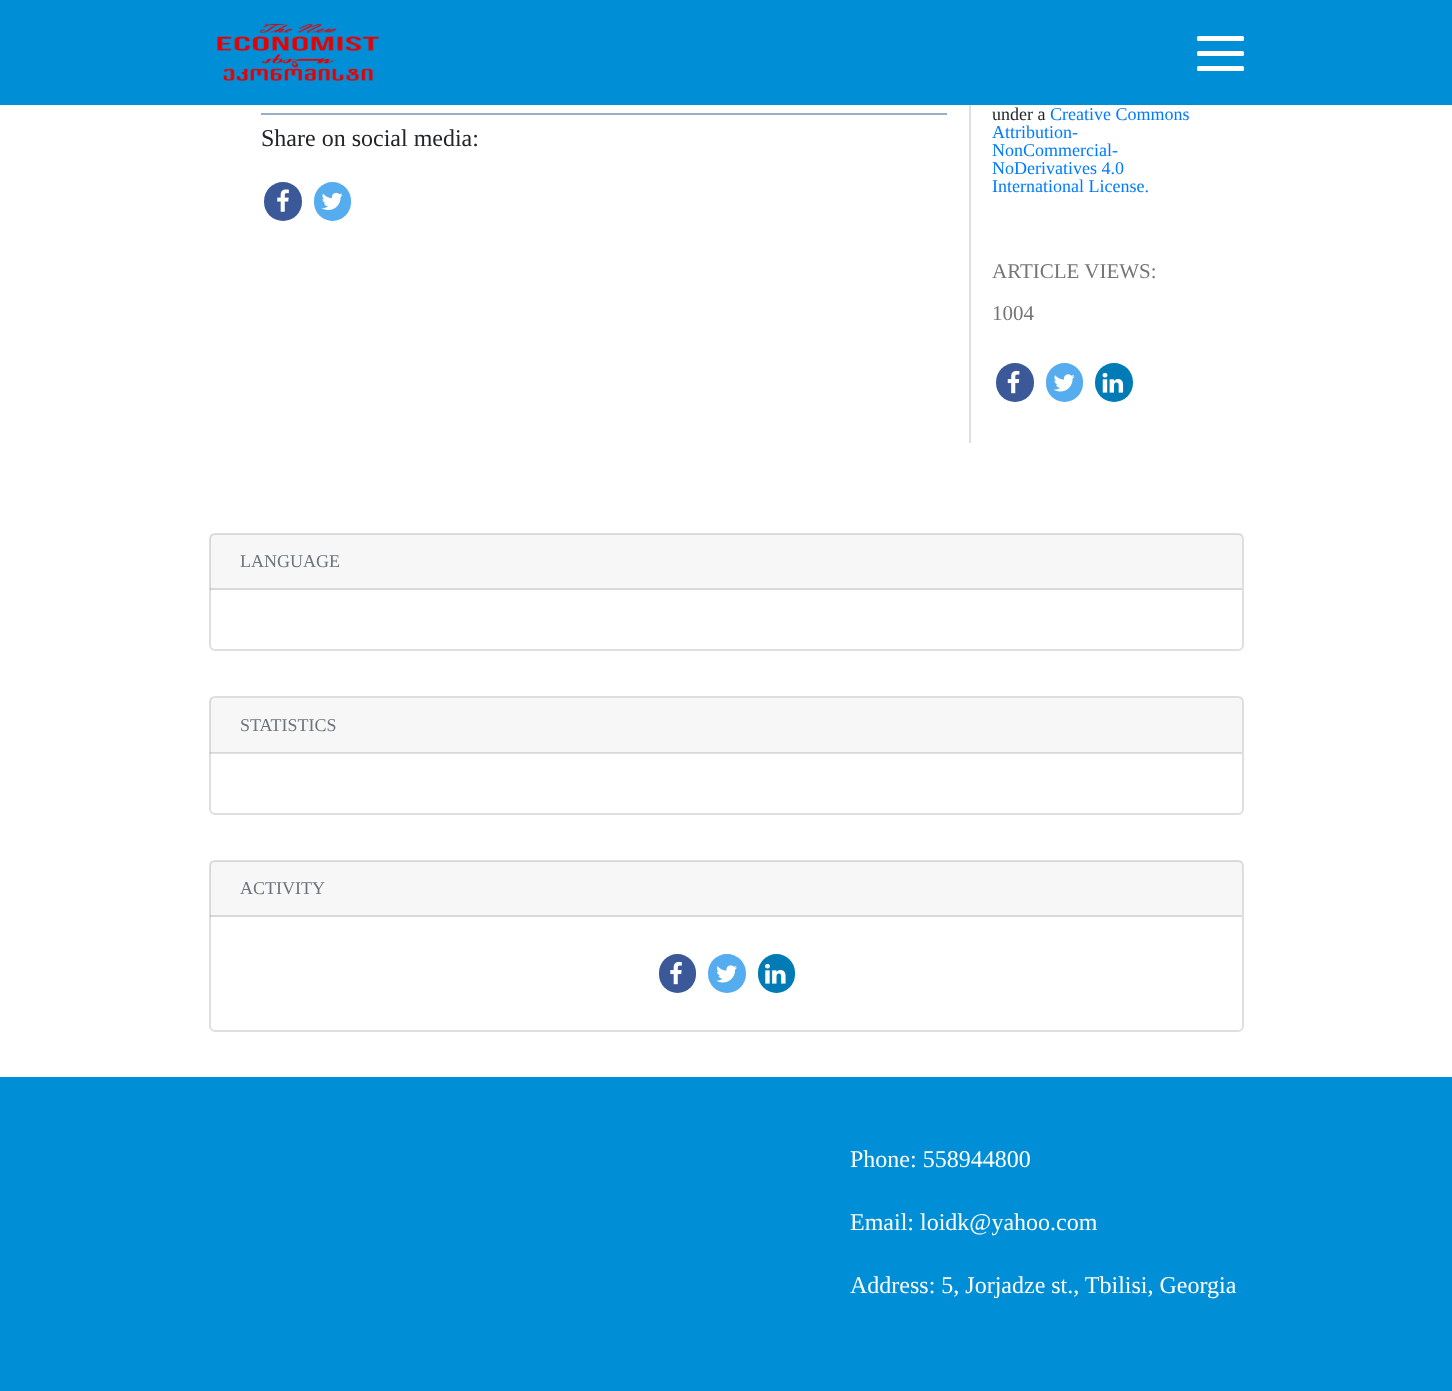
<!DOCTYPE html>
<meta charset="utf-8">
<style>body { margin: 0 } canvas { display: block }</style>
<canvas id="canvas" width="1452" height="1391"></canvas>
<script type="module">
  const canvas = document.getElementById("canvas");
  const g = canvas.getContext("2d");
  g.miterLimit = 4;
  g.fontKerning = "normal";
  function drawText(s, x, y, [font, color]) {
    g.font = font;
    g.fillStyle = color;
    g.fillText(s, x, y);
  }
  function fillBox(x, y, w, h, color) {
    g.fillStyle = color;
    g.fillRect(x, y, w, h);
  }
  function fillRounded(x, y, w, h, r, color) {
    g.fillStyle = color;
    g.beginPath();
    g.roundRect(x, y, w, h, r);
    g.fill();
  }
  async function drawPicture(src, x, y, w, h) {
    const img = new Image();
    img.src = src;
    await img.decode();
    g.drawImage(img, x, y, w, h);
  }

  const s1 = ["24px Liberation Serif", "#212529"];
  const s2 = ["18px Liberation Serif", "#212529"];
  const s3 = ["18px Liberation Serif", "#007BFF"];
  const s4 = ["21px Liberation Serif", "#757575"];
  const s5 = ["18px Liberation Serif", "#6C757D"];
  const s6 = ["24px Liberation Serif", "#FFFFFF"];

  fillBox(0, 0, 1452, 1391, "#FFFFFF");
  fillBox(0, 0, 1452, 105, "#008FD6");
  await drawPicture("pic1.png", 217, 23, 163, 58);
  fillRounded(1197, 36, 47, 5, 1.5, "#FFFFFF");
  fillRounded(1197, 51, 47, 5, 1.5, "#FFFFFF");
  fillRounded(1197, 66, 47, 5, 1.5, "#FFFFFF");
  fillBox(969, 105, 2, 338, "#DFDFDF");
  fillBox(261, 113, 686, 2, "#97B0C8");
  drawText("Share on social media:", 261, 146, s1);
  fillRounded(264, 182, 38, 39, 19, "#3B5998");
  await drawPicture("pic2.png", 277, 189, 12, 23);
  fillRounded(314, 182, 37, 39, 18.5, "#55ACEE");
  await drawPicture("pic3.png", 321, 192, 22, 18);
  drawText("under a", 992, 120, s2);
  drawText("Creative Commons", 1050, 120, s3);
  drawText("Attribution-", 992, 138, s3);
  drawText("NonCommercial-", 992, 156, s3);
  drawText("NoDerivatives 4.0", 992, 174, s3);
  drawText("International License.", 992, 192, s3);
  drawText("ARTICLE VIEWS:", 992, 278, s4);
  drawText("1004", 992, 320, s4);
  fillRounded(996, 363, 38, 39, 19, "#3B5998");
  await drawPicture("pic4.png", 1007, 370, 13, 24);
  fillRounded(1046, 363, 37, 39, 18.5, "#55ACEE");
  await drawPicture("pic5.png", 1053, 374, 22, 18);
  fillRounded(1095, 363, 38, 39, 19, "#007BB5");
  await drawPicture("pic6.png", 1102, 372, 22, 21);
  g.beginPath();
  g.roundRect(210, 534, 1033, 116, 5);
  g.strokeStyle = "#DFDFDF";
  g.lineWidth = 2;
  g.stroke();
  fillBox(210, 534, 1032, 56, "rgba(0, 0, 0, 0.03)");
  fillBox(210, 588, 1032, 2, "rgba(0, 0, 0, 0.12)");
  drawText("LANGUAGE", 240, 567, s5);
  g.beginPath();
  g.roundRect(210, 697, 1033, 117, 5);
  g.stroke();
  fillBox(210, 698, 1032, 55, "rgba(0, 0, 0, 0.03)");
  fillBox(210, 752, 1032, 2, "rgba(0, 0, 0, 0.12)");
  drawText("STATISTICS", 240, 731, s5);
  g.beginPath();
  g.roundRect(210, 861, 1033, 170, 5);
  g.stroke();
  fillBox(210, 861, 1032, 56, "rgba(0, 0, 0, 0.03)");
  fillBox(210, 915, 1032, 2, "rgba(0, 0, 0, 0.12)");
  drawText("ACTIVITY", 240, 894, s5);
  fillRounded(659, 954, 37, 39, 18.5, "#3B5998");
  await drawPicture("pic7.png", 670, 961, 12, 24);
  fillRounded(708, 954, 38, 39, 19, "#55ACEE");
  await drawPicture("pic8.png", 716, 965, 21, 18);
  fillRounded(758, 954, 37, 39, 18.5, "#007BB5");
  await drawPicture("pic9.png", 765, 963, 21, 21);
  fillBox(0, 1077, 1452, 314, "#008FD6");
  drawText("Phone: 558944800", 850, 1167, s6);
  drawText("Email: loidk@yahoo.com", 850, 1230, s6);
  drawText("Address: 5, Jorjadze st., Tbilisi, Georgia", 850, 1293, s6);
</script>
